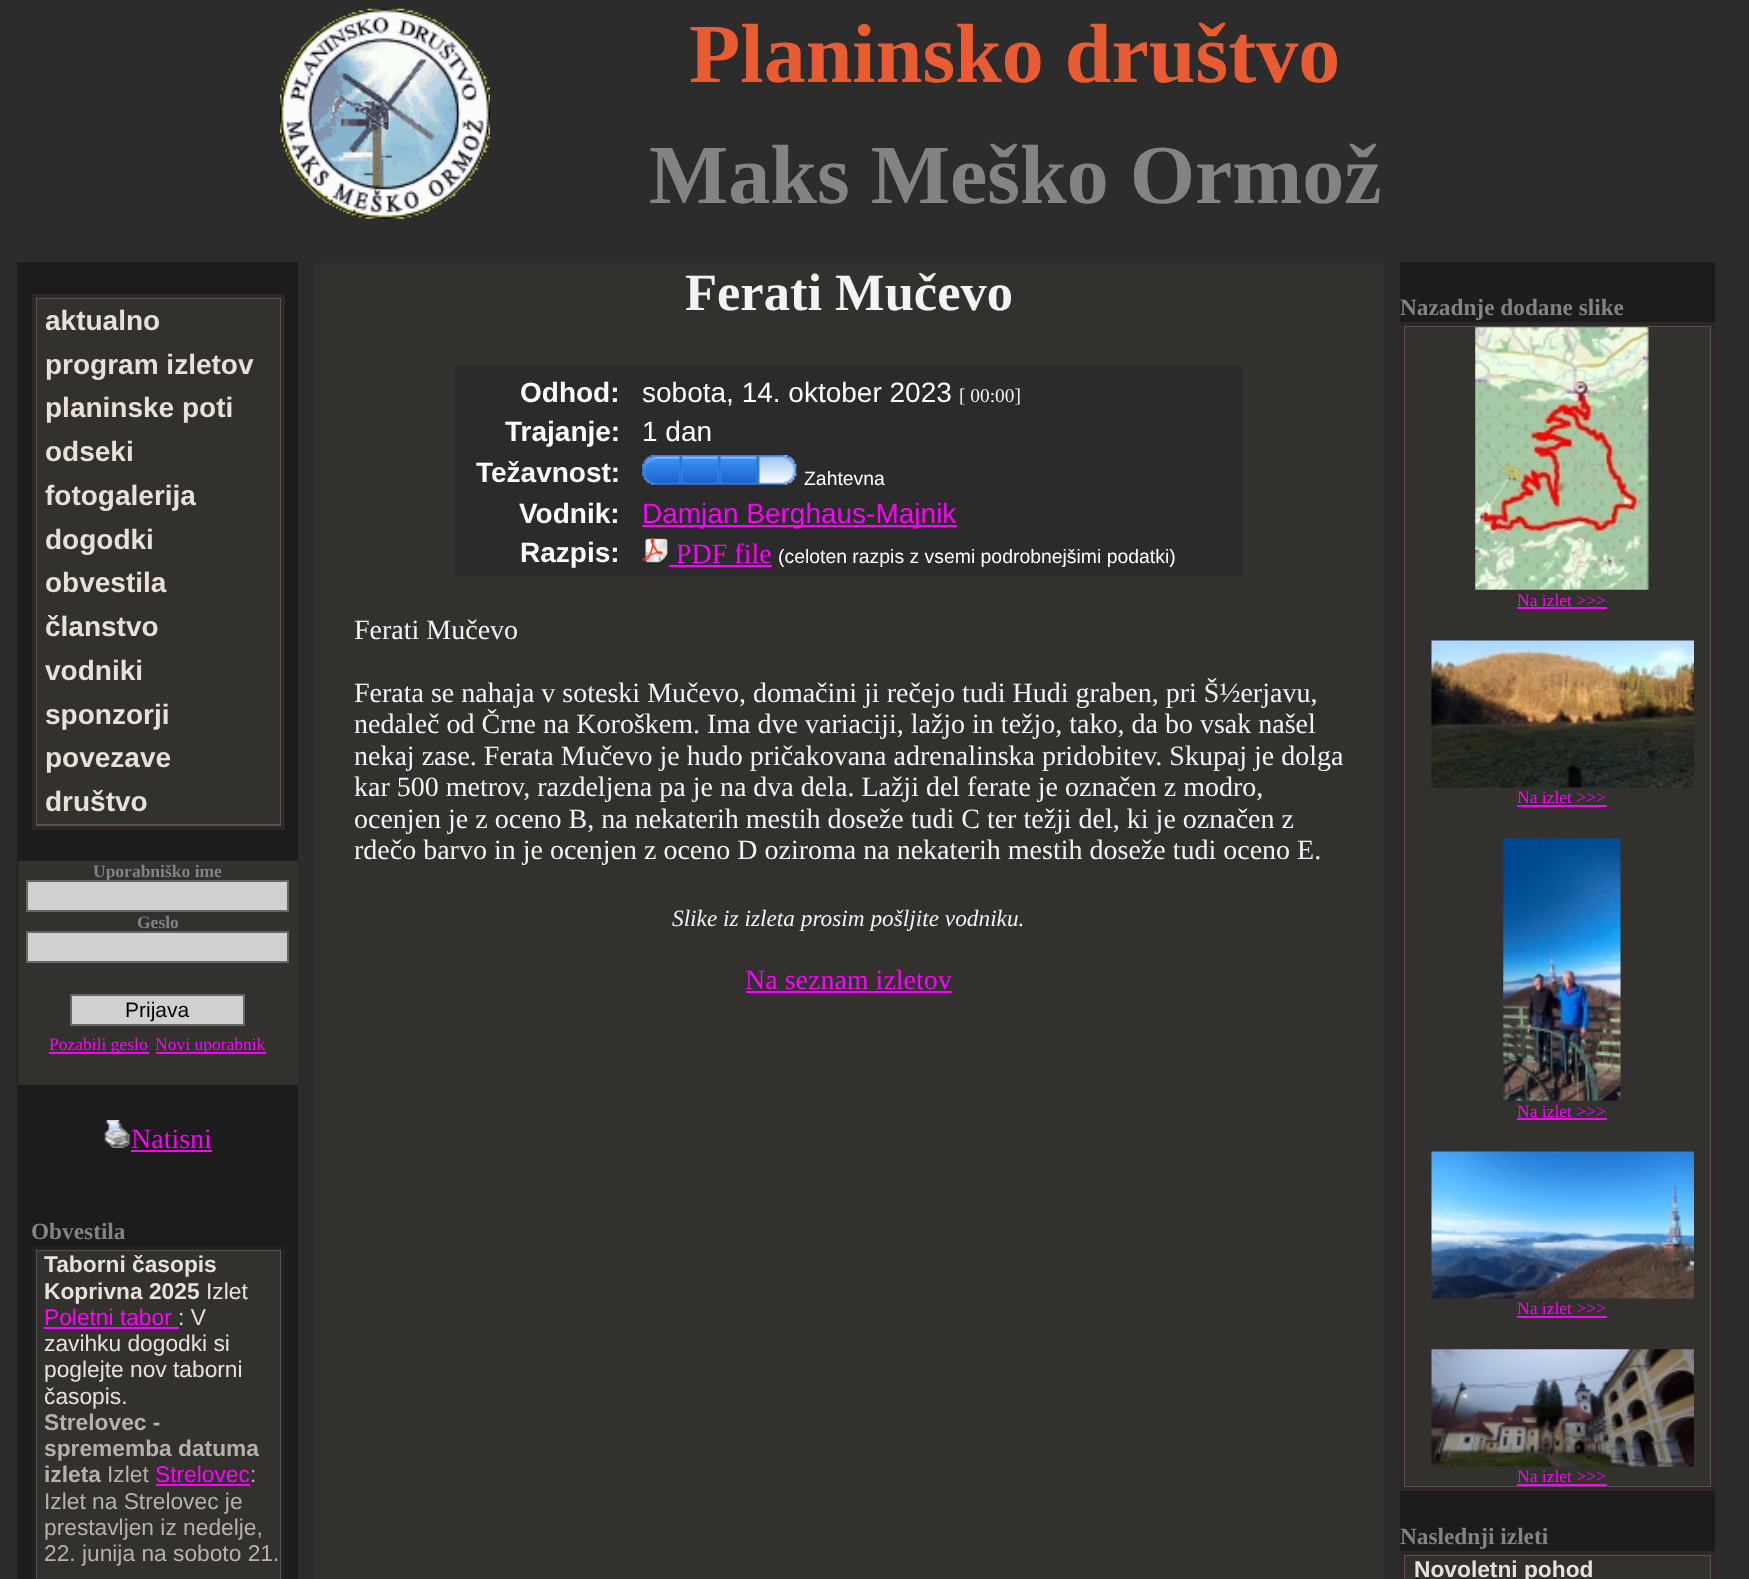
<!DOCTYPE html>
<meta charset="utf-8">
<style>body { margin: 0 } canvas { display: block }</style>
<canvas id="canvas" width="1749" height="1579"></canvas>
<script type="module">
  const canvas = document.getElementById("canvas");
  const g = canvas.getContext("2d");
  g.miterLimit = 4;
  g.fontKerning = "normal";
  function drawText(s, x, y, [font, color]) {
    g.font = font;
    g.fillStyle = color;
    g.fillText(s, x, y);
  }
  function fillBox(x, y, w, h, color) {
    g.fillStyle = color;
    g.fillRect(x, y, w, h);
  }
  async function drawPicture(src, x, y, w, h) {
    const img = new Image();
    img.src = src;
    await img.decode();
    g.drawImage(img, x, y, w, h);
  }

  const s1 = ["bold 84px Liberation Serif", "#E95B32"];
  const s2 = ["bold 84px Liberation Serif", "#828385"];
  const s3 = ["bold 28px Liberation Sans", "#E9E0D9"];
  const s4 = ["bold 17.5px Liberation Serif", "#828385"];
  const s5 = ["21px Liberation Sans", "#000000"];
  const s6 = ["17.5px Liberation Serif", "#FF00FF"];
  const s7 = ["28px Liberation Serif", "#FF00FF"];
  const s8 = ["bold 23.3px Liberation Serif", "#828385"];
  const s9 = ["bold 22.75px Liberation Sans", "#E9E0D9"];
  const s10 = ["22.75px Liberation Sans", "#E9E0D9"];
  const s11 = ["22.75px Liberation Sans", "#FF00FF"];
  const s12 = ["bold 22.75px Liberation Sans", "#B9B0A9"];
  const s13 = ["22.75px Liberation Sans", "#B9B0A9"];
  const s14 = ["bold 52.5px Liberation Serif", "#F4F2F4"];
  const s15 = ["bold 28px Liberation Sans", "#FFFFFF"];
  const s16 = ["28px Liberation Sans", "#FFFFFF"];
  const s17 = ["19.4px Liberation Serif", "#F4F2F4"];
  const s18 = ["19.4px Liberation Sans", "#FFFFFF"];
  const s19 = ["28px Liberation Sans", "#FF00FF"];
  const s20 = ["28px Liberation Serif", "#F4F2F4"];
  const s21 = ["italic 23.3px Liberation Serif", "#F4F2F4"];

  fillBox(0, 0, 1749, 1579, "#2C2C2C");
  await drawPicture("pic1.png", 280, 8, 210, 211);
  drawText("Planinsko društvo", 689, 82, s1);
  drawText("Maks Meško Ormož", 649, 203, s2);
  fillBox(17, 262, 281, 1317, "#1C1C1C");
  g.fillStyle = "#5C5050";
  g.beginPath();
  g.rect(34, 296, 249, 532);
  g.fill();
  g.strokeStyle = "#2E2627";
  g.lineWidth = 4;
  g.stroke();
  fillBox(37, 299, 243, 525, "#32312D");
  drawText("aktualno", 45, 330, s3);
  drawText("program izletov", 45, 374, s3);
  drawText("planinske poti", 45, 417, s3);
  drawText("odseki", 45, 461, s3);
  drawText("fotogalerija", 45, 505, s3);
  drawText("dogodki", 45, 549, s3);
  drawText("obvestila", 45, 592, s3);
  drawText("članstvo", 45, 636, s3);
  drawText("vodniki", 45, 680, s3);
  drawText("sponzorji", 45, 724, s3);
  drawText("povezave", 45, 767, s3);
  drawText("društvo", 45, 811, s3);
  fillBox(18, 861, 280, 224, "#32312D");
  drawText("Uporabniško ime", 93, 877, s4);
  g.fillStyle = "#D0D0D0";
  g.beginPath();
  g.rect(27, 881, 261, 30);
  g.fill();
  g.strokeStyle = "#666666";
  g.lineWidth = 2;
  g.stroke();
  drawText("Geslo", 137, 928, s4);
  g.fillStyle = "#D0D0D0";
  g.beginPath();
  g.rect(27, 932, 261, 30);
  g.fill();
  g.stroke();
  g.beginPath();
  g.rect(71, 995, 173, 30);
  g.fill();
  g.stroke();
  drawText("Prijava", 125, 1017, s5);
  fillBox(49, 1052, 100, 2, "#FF00FF");
  drawText("Pozabili geslo", 49, 1050, s6);
  fillBox(156, 1052, 110, 2, "#FF00FF");
  drawText("Novi uporabnik", 155, 1050, s6);
  await drawPicture("pic2.png", 104, 1120, 26, 28);
  drawText("Natisni", 131, 1148, s7);
  fillBox(131, 1150, 81, 2, "#FF00FF");
  drawText("Obvestila", 31, 1239, s8);
  g.fillStyle = "#5C5050";
  g.beginPath();
  g.rect(34, 1248, 249, 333);
  g.fill();
  g.strokeStyle = "#222222";
  g.lineWidth = 4;
  g.stroke();
  fillBox(37, 1251, 243, 328, "#32312D");
  drawText("Taborni časopis", 44, 1272, s9);
  drawText("Koprivna 2025", 44, 1299, s9);
  drawText("Izlet", 206, 1299, s10);
  drawText("Poletni tabor", 44, 1325, s11);
  fillBox(44, 1327, 135, 2, "#FF00FF");
  drawText(": V", 178, 1325, s10);
  drawText("zavihku dogodki si", 44, 1351, s10);
  drawText("poglejte nov taborni", 44, 1377, s10);
  drawText("časopis.", 44, 1404, s10);
  drawText("Strelovec -", 44, 1430, s12);
  drawText("sprememba datuma", 44, 1456, s12);
  drawText("izleta", 44, 1482, s12);
  drawText("Izlet", 107, 1482, s13);
  drawText("Strelovec", 155, 1482, s11);
  drawText(":", 250, 1482, s13);
  fillBox(156, 1484, 94, 2, "#FF00FF");
  drawText("Izlet na Strelovec je", 44, 1509, s13);
  drawText("prestavljen iz nedelje,", 44, 1535, s13);
  drawText("22. junija na soboto 21.", 44, 1561, s13);
  fillBox(315, 263, 1068, 1316, "#32312D");
  drawText("Ferati Mučevo", 685, 310, s14);
  fillBox(455, 366, 788, 210, "#2B2B2B");
  drawText("Odhod:", 520, 402, s15);
  drawText("sobota, 14. oktober 2023", 642, 402, s16);
  drawText("[ 00:00]", 959, 402, s17);
  drawText("Trajanje:", 505, 441, s15);
  drawText("1 dan", 642, 441, s16);
  drawText("Težavnost:", 476, 482, s15);
  await drawPicture("pic3.png", 642, 455, 39, 30);
  await drawPicture("pic4.png", 680, 455, 40, 30);
  await drawPicture("pic5.png", 719, 455, 39, 30);
  await drawPicture("pic6.png", 757, 455, 40, 30);
  drawText("Zahtevna", 804, 485, s18);
  drawText("Vodnik:", 519, 523, s15);
  fillBox(642, 525, 315, 2, "#FF00FF");
  drawText("Damjan Berghaus-Majnik", 642, 523, s19);
  drawText("Razpis:", 520, 562, s15);
  await drawPicture("pic7.png", 642, 537, 27, 27);
  drawText("PDF file", 676, 563, s7);
  fillBox(669, 565, 103, 2, "#FF00FF");
  drawText("(celoten razpis z vsemi podrobnejšimi podatki)", 778, 563, s18);
  drawText("Ferati Mučevo", 354, 639, s20);
  drawText("Ferata se nahaja v soteski Mučevo, domačini ji rečejo tudi Hudi graben, pri Š½erjavu,", 354, 702, s20);
  drawText("nedaleč od Črne na Koroškem. Ima dve variaciji, lažjo in težjo, tako, da bo vsak našel", 354, 733, s20);
  drawText("nekaj zase. Ferata Mučevo je hudo pričakovana adrenalinska pridobitev. Skupaj je dolga", 354, 765, s20);
  drawText("kar 500 metrov, razdeljena pa je na dva dela. Lažji del ferate je označen z modro,", 354, 796, s20);
  drawText("ocenjen je z oceno B, na nekaterih mestih doseže tudi C ter težji del, ki je označen z", 354, 828, s20);
  drawText("rdečo barvo in je ocenjen z oceno D oziroma na nekaterih mestih doseže tudi oceno E.", 354, 859, s20);
  drawText("Slike iz izleta prosim pošljite vodniku.", 672, 926, s21);
  drawText("Na seznam izletov", 745, 989, s7);
  fillBox(746, 991, 206, 2, "#FF00FF");
  fillBox(1400, 262, 315, 1289, "#1C1C1C");
  drawText("Nazadnje dodane slike", 1400, 315, s8);
  g.fillStyle = "#5C5050";
  g.beginPath();
  g.rect(1402, 324, 311, 1165);
  g.fill();
  g.strokeStyle = "#2E2627";
  g.stroke();
  fillBox(1405, 327, 305, 1159, "#32312D");
  await drawPicture("pic8.png", 1475, 327, 174, 263);
  drawText("Na izlet >>>", 1517, 606, s6);
  fillBox(1517, 607, 90, 2, "#FF00FF");
  await drawPicture("pic9.png", 1431, 640, 263, 148);
  drawText("Na izlet >>>", 1517, 803, s6);
  fillBox(1517, 805, 90, 2, "#FF00FF");
  await drawPicture("pic10.png", 1503, 838, 118, 263);
  drawText("Na izlet >>>", 1517, 1117, s6);
  fillBox(1517, 1118, 90, 2, "#FF00FF");
  await drawPicture("pic11.png", 1431, 1151, 263, 148);
  drawText("Na izlet >>>", 1517, 1314, s6);
  fillBox(1517, 1316, 90, 2, "#FF00FF");
  await drawPicture("pic12.png", 1431, 1349, 263, 118);
  drawText("Na izlet >>>", 1517, 1482, s6);
  fillBox(1517, 1484, 90, 2, "#FF00FF");
  drawText("Naslednji izleti", 1400, 1544, s8);
  g.fillStyle = "#5C5050";
  g.beginPath();
  g.rect(1402, 1553, 311, 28);
  g.fill();
  g.stroke();
  fillBox(1405, 1556, 305, 23, "#32312D");
  drawText("Novoletni pohod", 1414, 1577, s9);
</script>
